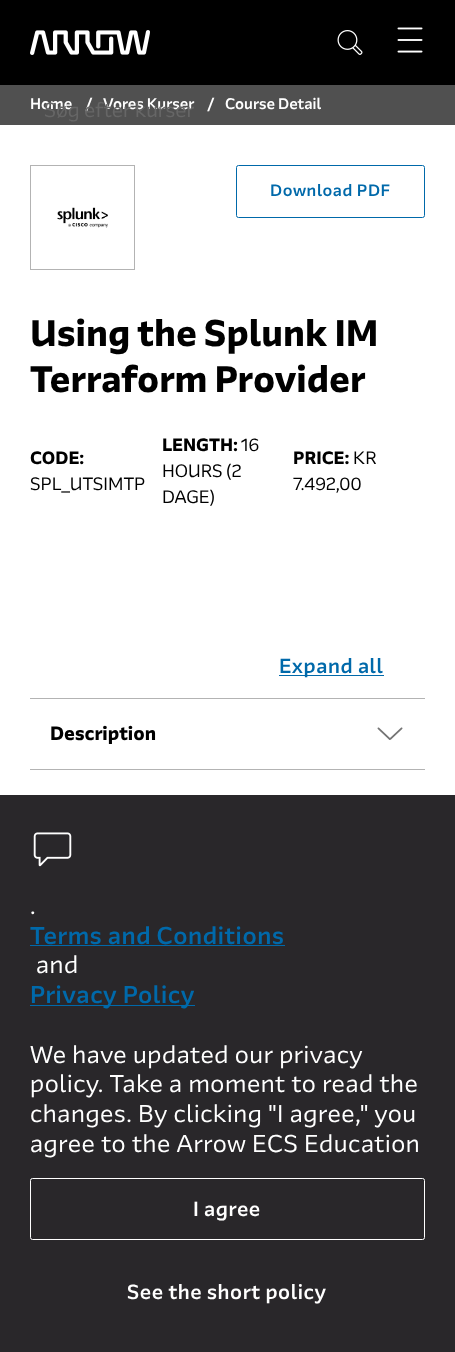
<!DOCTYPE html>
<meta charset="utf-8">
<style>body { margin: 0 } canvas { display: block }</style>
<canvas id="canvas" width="455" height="1352"></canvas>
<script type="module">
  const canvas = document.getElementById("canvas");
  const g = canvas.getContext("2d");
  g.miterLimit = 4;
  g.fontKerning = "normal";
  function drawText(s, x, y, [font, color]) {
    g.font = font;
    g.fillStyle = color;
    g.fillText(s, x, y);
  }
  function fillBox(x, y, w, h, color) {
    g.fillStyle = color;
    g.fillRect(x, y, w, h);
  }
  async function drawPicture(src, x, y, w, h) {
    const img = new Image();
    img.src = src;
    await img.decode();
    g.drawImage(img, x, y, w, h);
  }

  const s1 = ["500 15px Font", "#FFFFFF"];
  const s2 = ["500 16.25px Font", "#0069AA"];
  const s3 = ["bold 36.25px Font", "#000000"];
  const s4 = ["bold 17.5px Font", "#000000"];
  const s5 = ["17.5px Font", "#000000"];
  const s6 = ["500 20px Font", "#0069AA"];
  const s7 = ["bold 18.75px Font", "#000000"];
  const s8 = ["20px Font", "#666666"];
  const s9 = ["23.75px Font", "#FFFFFF"];
  const s10 = ["500 23.75px Font", "#0069AA"];
  const s11 = ["500 20px Font", "#FFFFFF"];

  fillBox(0, 0, 455, 1352, "#FFFFFF");
  fillBox(0, 85, 455, 40, "#505050");
  drawText("Home", 30, 109, s1);
  drawText("/", 85, 109, s1);
  drawText("Vores Kurser", 103, 109, s1);
  drawText("/", 207, 109, s1);
  drawText("Course Detail", 225, 109, s1);
  g.strokeStyle = "#B3B3B3";
  g.strokeRect(30.5, 165.5, 104, 104);
  await drawPicture("pic1.png", 57, 207, 51, 21);
  g.beginPath();
  g.roundRect(236.5, 165.5, 188, 52, 2);
  g.strokeStyle = "#0069AA";
  g.stroke();
  g.letterSpacing = "0.6px";
  drawText("Download PDF", 270, 196, s2);
  g.letterSpacing = "0px";
  drawText("Using the Splunk IM", 30, 346, s3);
  drawText("Terraform Provider", 30, 392, s3);
  drawText("CODE:", 30, 464, s4);
  drawText("SPL_UTSIMTP", 30, 490, s5);
  drawText("LENGTH:", 162, 451, s4);
  drawText("16", 241, 451, s5);
  drawText("HOURS (2", 162, 477, s5);
  drawText("DAGE)", 162, 503, s5);
  drawText("PRICE:", 293, 464, s4);
  drawText("KR", 353, 464, s5);
  drawText("7.492,00", 293, 490, s5);
  fillBox(279, 675, 105, 1, "#0069AA");
  g.letterSpacing = "0.6px";
  drawText("Expand all", 279, 673, s6);
  fillBox(30, 698, 395, 1, "#B3B3B3");
  g.letterSpacing = "0px";
  drawText("Description", 50, 740, s7);
  await drawPicture("pic2.png", 377, 727, 26, 13);
  fillBox(30, 769, 395, 1, "#B3B3B3");
  fillBox(0, 0, 455, 85, "#000000");
  await drawPicture("pic3.png", 30, 30, 120, 25);
  await drawPicture("pic4.png", 337, 30, 26, 25);
  await drawPicture("pic5.png", 397, 27, 26, 26);
  drawText("Søg efter kurser", 44, 117, s8);
  fillBox(0, 795, 455, 557, "#29272A");
  await drawPicture("pic6.png", 33, 832, 39, 35);
  g.letterSpacing = "0.6px";
  drawText(".", 30, 914, s9);
  drawText("Terms and Conditions", 30, 944, s10);
  fillBox(30, 945, 255, 1, "#0069AA");
  drawText("and", 36, 973, s9);
  fillBox(30, 1005, 165, 1, "#0069AA");
  drawText("Privacy Policy", 30, 1003, s10);
  drawText("We have updated our privacy", 30, 1063, s9);
  drawText("policy. Take a moment to read the", 30, 1092, s9);
  drawText("changes. By clicking \"I agree,\" you", 30, 1122, s9);
  drawText("agree to the Arrow ECS Education", 30, 1152, s9);
  g.beginPath();
  g.roundRect(30.5, 1178.5, 394, 61, 2);
  g.strokeStyle = "#FFFFFF";
  g.stroke();
  drawText("I agree", 193, 1216, s11);
  drawText("See the short policy", 127, 1299, s11);
</script>
